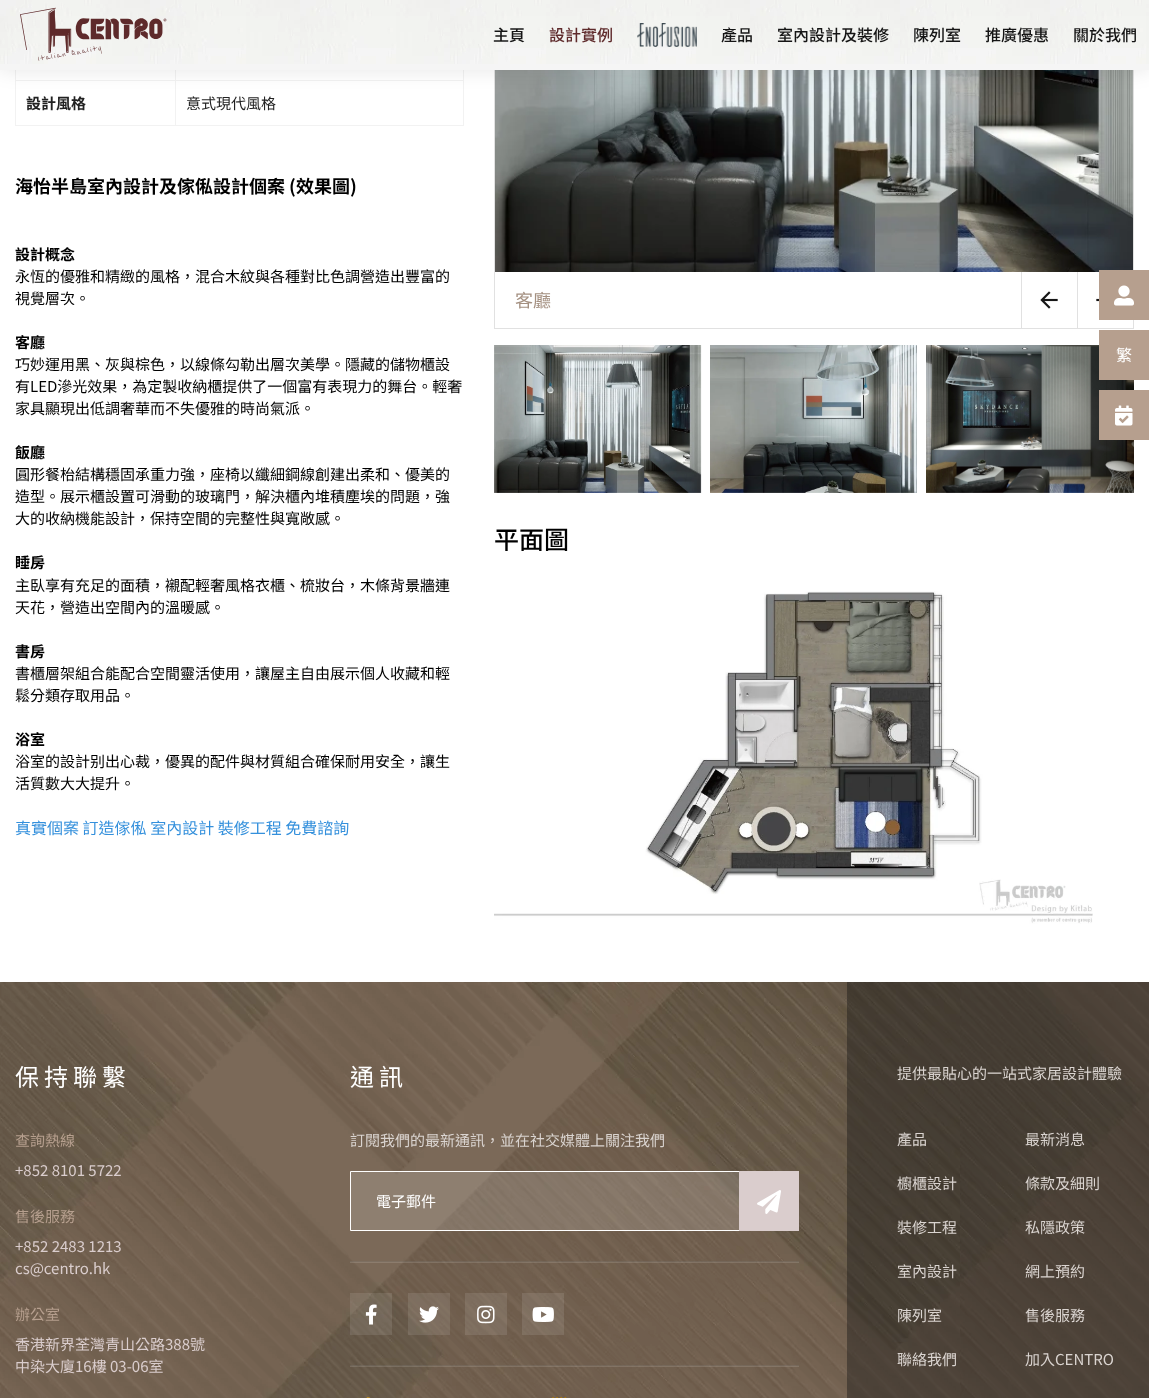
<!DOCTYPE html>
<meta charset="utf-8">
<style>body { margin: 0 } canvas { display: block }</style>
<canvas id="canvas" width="1149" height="1398"></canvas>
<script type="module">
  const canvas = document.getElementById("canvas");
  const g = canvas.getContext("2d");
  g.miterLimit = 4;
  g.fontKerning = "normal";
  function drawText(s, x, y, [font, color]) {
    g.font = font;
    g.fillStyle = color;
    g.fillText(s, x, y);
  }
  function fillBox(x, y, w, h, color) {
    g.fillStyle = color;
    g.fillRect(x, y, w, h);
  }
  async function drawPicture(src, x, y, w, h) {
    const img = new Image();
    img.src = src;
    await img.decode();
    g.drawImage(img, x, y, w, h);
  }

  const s1 = ["500 16px Noto Sans TC", "#151515"];
  const s2 = ["500 16px Noto Sans TC", "#5E2A2B"];
  const s3 = ["bold 15px Noto Sans TC", "#222222"];
  const s4 = ["15px Noto Sans TC", "#222222"];
  const s5 = ["bold 18px Noto Sans TC", "#000000"];
  const s6 = ["bold 15px Noto Sans TC", "#000000"];
  const s7 = ["15px Noto Sans TC", "#000000"];
  const s8 = ["15px Noto Sans SC", "#000000"];
  const s9 = ["16px Noto Sans TC", "#3490DC"];
  const s10 = ["18px Noto Sans TC", "#A49081"];
  const s11 = ["500 25px Noto Sans TC", "#000000"];
  const s12 = ["16px Noto Sans TC", "#FFFFFF"];
  const s13 = ["24px Noto Sans TC", "#FFFFFF"];
  const s14 = ["15px Noto Sans TC", "#B69F8E"];
  const s15 = ["15px Noto Sans TC", "#DACDCD"];
  const s16 = ["15px Noto Sans TC", "#DAD4D0"];
  const s17 = ["15px Noto Sans TC", "#FFFFFF"];

  fillBox(0, 0, 1149, 1398, "#FFFFFF");
  fillBox(463, 70, 1, 56, "#F2F2F2");
  fillBox(15, 125, 449, 1, "#F2F2F2");
  fillBox(15, 70, 1, 56, "#F2F2F2");
  fillBox(175, 80, 289, 1, "#F2F2F2");
  fillBox(175, 80, 1, 46, "#F2F2F2");
  fillBox(15, 80, 161, 1, "#F2F2F2");
  fillBox(175, 70, 1, 11, "#F2F2F2");
  g.strokeStyle = "#E1E1E1";
  g.strokeRect(494.5, -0.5, 639, 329);
  await drawPicture("pic4.png", 495, 70, 638, 202);
  g.fillStyle = "rgba(0, 0, 0, 0.1)";
  g.filter = "blur(10px)";
  g.beginPath();
  g.rect(0, 0, 1149, 70);
  g.fill();
  g.filter = "none";
  fillBox(0, 64, 1149, 6, "#F5F5F5");
  await drawPicture("pic1.png", 0, 0, 1149, 64);
  await drawPicture("pic2.png", 20, 7, 147, 54);
  drawText("主頁", 493, 41, s1);
  drawText("設計實例", 549, 41, s2);
  await drawPicture("pic3.png", 637, 23, 60, 24);
  drawText("產品", 721, 41, s1);
  drawText("室內設計及裝修", 777, 41, s1);
  drawText("陳列室", 913, 41, s1);
  drawText("推廣優惠", 985, 41, s1);
  drawText("關於我們", 1073, 41, s1);
  drawText("設計風格", 26, 109, s3);
  drawText("意式現代風格", 186, 109, s4);
  drawText("海怡半島室內設計及傢俬設計個案 (效果圖)", 15, 193, s5);
  drawText("設計概念", 15, 260, s6);
  drawText("永恆的優雅和精緻的風格，混合木紋與各種對比色調營造出豐富的", 15, 282, s7);
  drawText("視覺層次。", 15, 304, s7);
  drawText("客廳", 15, 348, s6);
  drawText("巧妙運用黑、灰與棕色，以線條勾勒出層次美學。隱藏的儲物櫃設", 15, 370, s7);
  drawText("有LED滲光效果，為定製收納櫃提供了一個富有表現力的舞台。輕奢", 15, 392, s7);
  drawText("家具顯現出低調奢華而不失優雅的時尚氣派。", 15, 414, s7);
  drawText("飯廳", 15, 458, s6);
  drawText("圓形餐枱結構穩固承重力強，座椅以纖細鋼線創建出柔和、優美的", 15, 480, s7);
  drawText("造型。展示櫃設置可滑動的玻璃門，解決櫃內堆積塵埃的問題，強", 15, 502, s7);
  drawText("大的收納機能設計，保持空間的完整性與寬敞感。", 15, 524, s7);
  drawText("睡房", 15, 568, s6);
  drawText("主臥享有充足的面積，襯配輕奢風格衣櫃、梳妝台，木條背景牆連", 15, 591, s7);
  drawText("天花，營造出空間內的溫暖感。", 15, 613, s7);
  drawText("書房", 15, 657, s6);
  drawText("書櫃層架組合能配合空間靈活使用，讓屋主自由展示個人收藏和輕", 15, 679, s7);
  drawText("鬆分類存取用品。", 15, 701, s7);
  drawText("浴室", 15, 745, s6);
  drawText("浴室的設計", 15, 767, s7);
  drawText("别", 90, 767, s8);
  drawText("出心裁，優異的配", 105, 767, s7);
  drawText("件", 225, 767, s8);
  drawText("與材質組合確", 240, 767, s7);
  drawText("保", 330, 767, s8);
  drawText("耐用安全，讓生", 345, 767, s7);
  drawText("活質數大大提升。", 15, 789, s7);
  drawText("真實個案 訂造傢俬 室內設計 裝修工程 免費諮詢", 15, 834, s9);
  drawText("客廳", 515, 307, s10);
  fillBox(1021, 272, 1, 56, "#E1E1E1");
  await drawPicture("pic5.png", 1040, 291, 18, 18);
  fillBox(1077, 272, 1, 56, "#E1E1E1");
  await drawPicture("pic6.png", 1096, 298, 3, 4);
  await drawPicture("pic7.png", 494, 345, 208, 148);
  await drawPicture("pic8.png", 710, 345, 207, 148);
  await drawPicture("pic9.png", 926, 345, 208, 148);
  drawText("平面圖", 494, 549, s11);
  await drawPicture("pic10.png", 494, 591, 599, 333);
  fillBox(1099, 270, 50, 50, "#B69F8E");
  await drawPicture("pic11.png", 1114, 285, 20, 21);
  fillBox(1099, 330, 50, 50, "#B69F8E");
  drawText("繁", 1116, 361, s12);
  fillBox(1099, 390, 50, 50, "#B69F8E");
  await drawPicture("pic12.png", 1115, 405, 18, 21);
  await drawPicture("pic13.png", 0, 982, 1149, 416);
  g.letterSpacing = "5px";
  drawText("保持聯繫", 15, 1086, s13);
  g.letterSpacing = "0px";
  drawText("查詢熱線", 15, 1146, s14);
  drawText("+852 8101 5722", 15, 1176, s15);
  drawText("售後服務", 15, 1222, s14);
  drawText("+852 2483 1213", 15, 1252, s15);
  drawText("cs@centro.hk", 15, 1274, s15);
  drawText("辦公室", 15, 1320, s14);
  drawText("香港新界荃灣青山公路388號", 15, 1350, s15);
  drawText("中染大廈16樓 03-06室", 15, 1372, s15);
  g.letterSpacing = "5px";
  drawText("通訊", 350, 1086, s13);
  g.letterSpacing = "0px";
  drawText("訂閱我們的最新通訊，並在社交媒體上關注我們", 350, 1146, s16);
  g.fillStyle = "rgba(255, 255, 255, 0.15)";
  g.beginPath();
  g.rect(350.5, 1171.5, 389, 59);
  g.fill();
  g.strokeStyle = "#FFFFFF";
  g.stroke();
  drawText("電子郵件", 376, 1207, s17);
  fillBox(739, 1171, 60, 60, "#DACDCD");
  await drawPicture("pic14.png", 757, 1190, 24, 24);
  fillBox(350, 1261, 449, 2, "rgba(255, 255, 255, 0.13)");
  fillBox(350, 1261, 449, 1, "rgba(0, 0, 0, 0.1)");
  fillBox(350, 1293, 42, 42, "rgba(255, 255, 255, 0.1)");
  await drawPicture("pic15.png", 365, 1304, 12, 21);
  fillBox(408, 1293, 42, 42, "rgba(255, 255, 255, 0.1)");
  await drawPicture("pic16.png", 419, 1306, 20, 17);
  fillBox(465, 1293, 42, 42, "rgba(255, 255, 255, 0.1)");
  await drawPicture("pic17.png", 477, 1305, 18, 19);
  fillBox(522, 1293, 42, 42, "rgba(255, 255, 255, 0.1)");
  await drawPicture("pic18.png", 532, 1307, 22, 15);
  fillBox(350, 1365, 449, 2, "rgba(255, 255, 255, 0.13)");
  fillBox(350, 1365, 449, 1, "rgba(0, 0, 0, 0.1)");
  await drawPicture("pic19.png", 366, 1397, 4, 1);
  await drawPicture("pic20.png", 552, 1397, 15, 1);
  fillBox(847, 982, 302, 416, "rgba(20, 20, 20, 0.4)");
  drawText("提供最貼心的一站式家居設計體驗", 897, 1079, s16);
  drawText("產品", 897, 1145, s16);
  drawText("最新消息", 1025, 1145, s16);
  drawText("櫥櫃設計", 897, 1189, s16);
  drawText("條款及細則", 1025, 1189, s16);
  drawText("裝修工程", 897, 1233, s16);
  drawText("私隱政策", 1025, 1233, s16);
  drawText("室內設計", 897, 1277, s16);
  drawText("網上預約", 1025, 1277, s16);
  drawText("陳列室", 897, 1321, s16);
  drawText("售後服務", 1025, 1321, s16);
  drawText("聯絡我們", 897, 1365, s16);
  drawText("加入CENTRO", 1025, 1365, s16);
</script>
